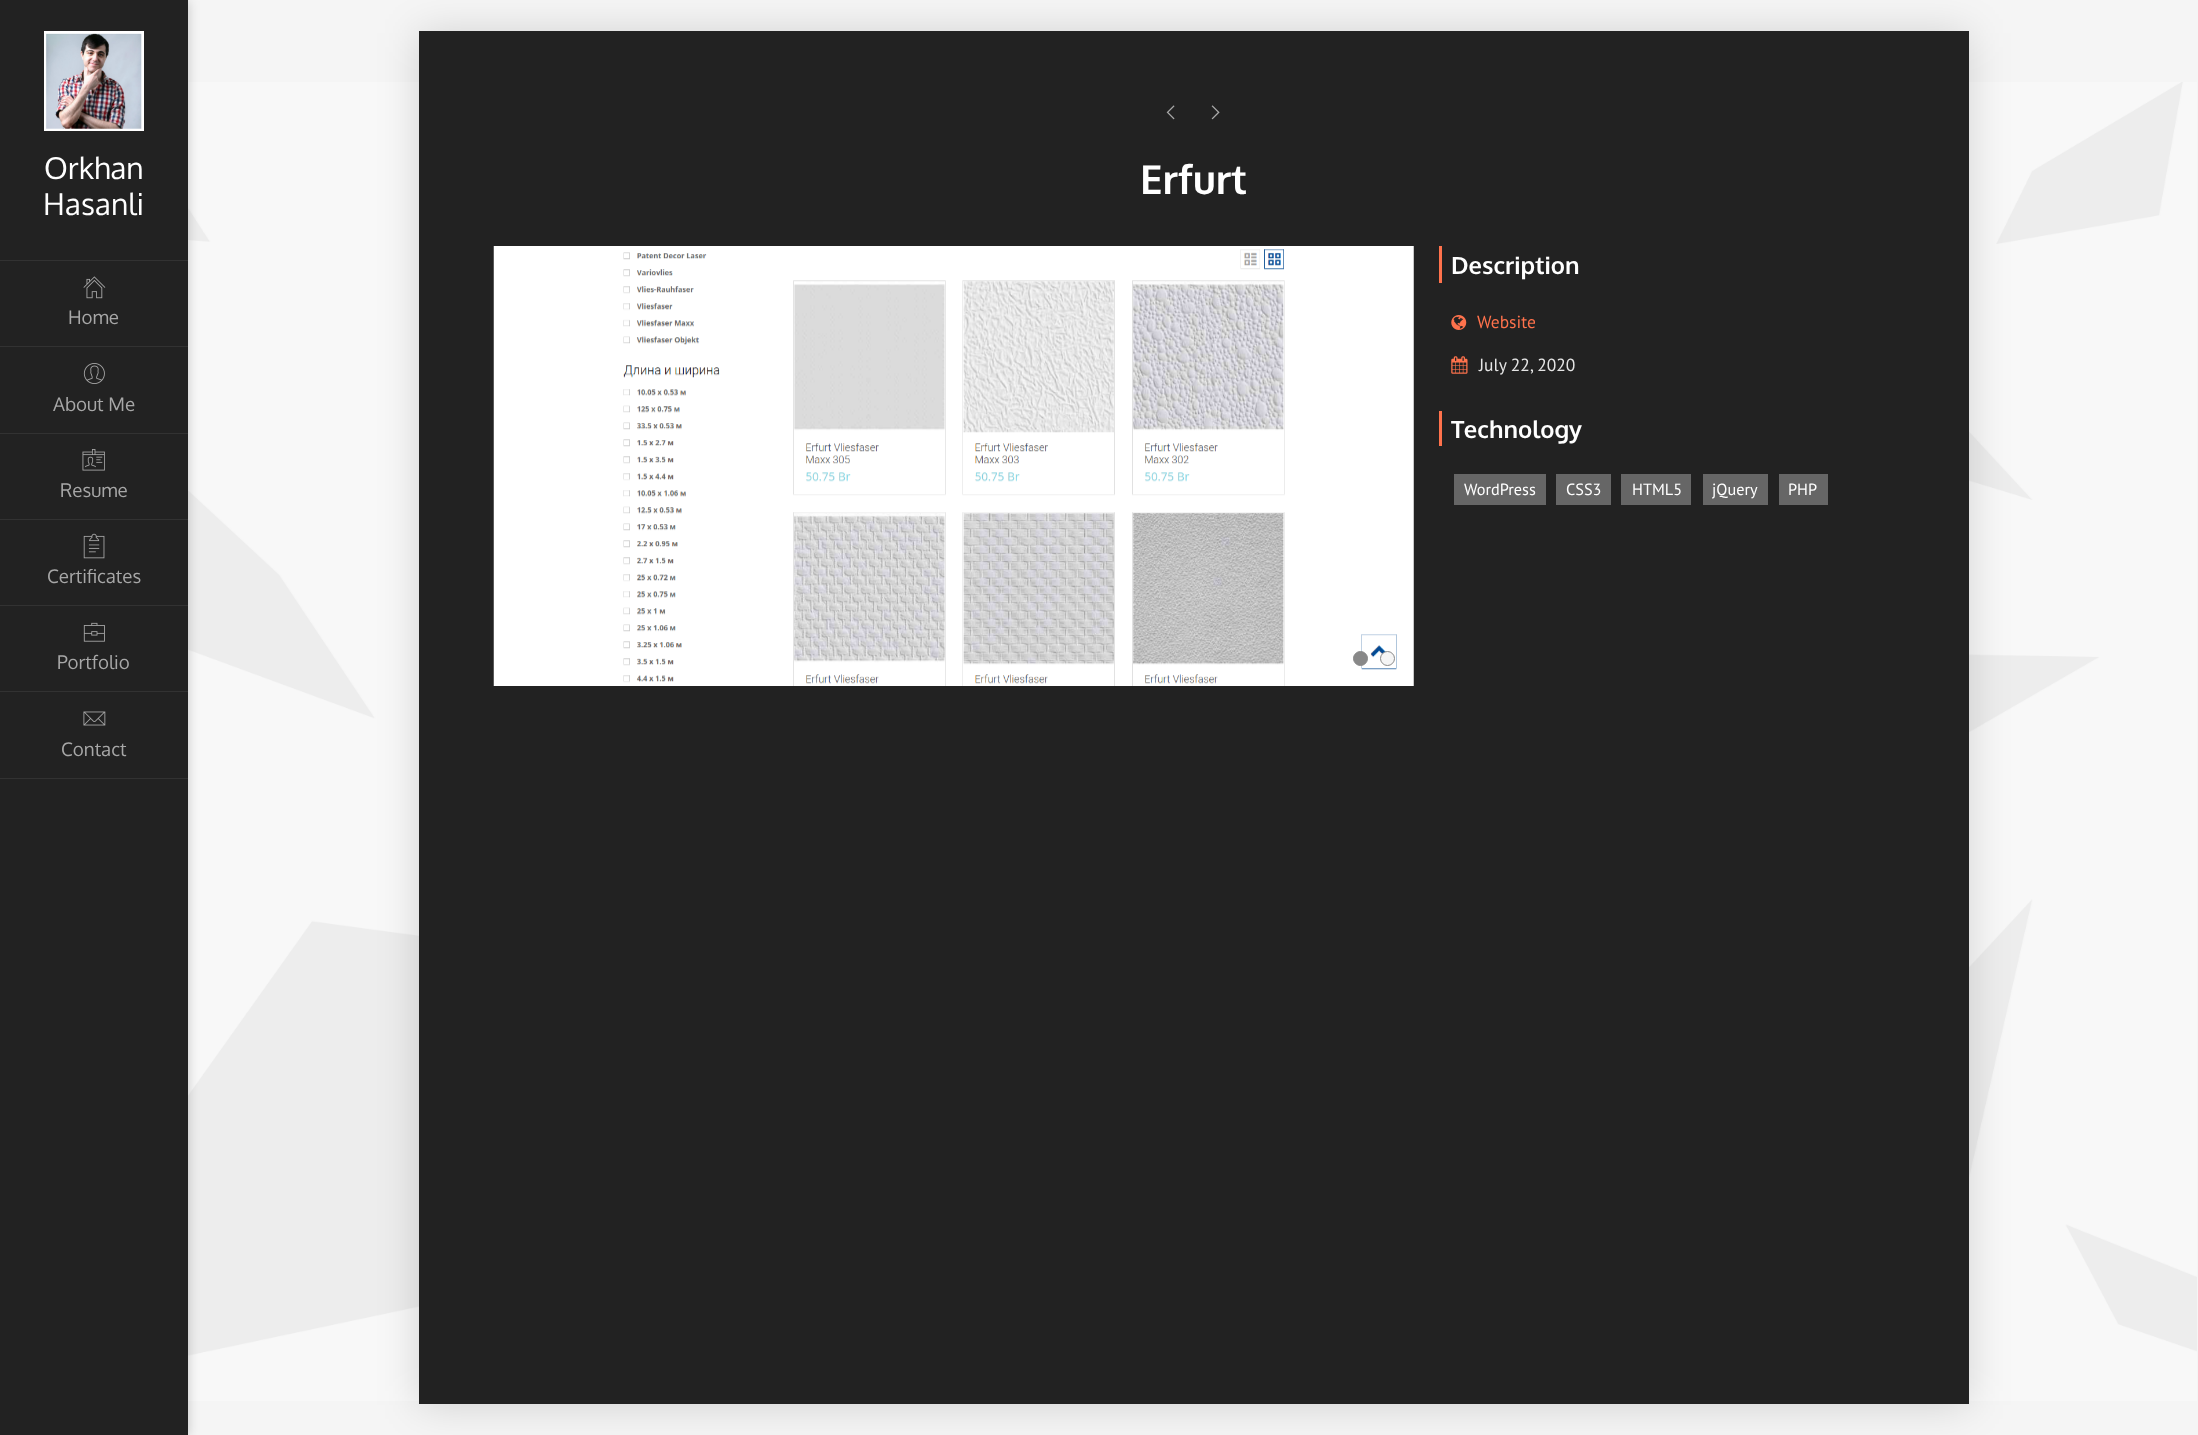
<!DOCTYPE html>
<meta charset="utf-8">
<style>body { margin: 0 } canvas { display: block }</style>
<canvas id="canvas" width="2198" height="1435"></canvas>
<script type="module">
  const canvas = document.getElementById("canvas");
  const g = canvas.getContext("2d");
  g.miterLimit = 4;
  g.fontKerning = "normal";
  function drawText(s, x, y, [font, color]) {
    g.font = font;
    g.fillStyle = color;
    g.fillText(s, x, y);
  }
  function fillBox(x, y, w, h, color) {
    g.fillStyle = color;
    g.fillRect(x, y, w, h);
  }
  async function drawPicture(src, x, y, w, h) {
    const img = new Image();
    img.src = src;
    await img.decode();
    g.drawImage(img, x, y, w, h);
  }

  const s1 = ["30px Oxygen", "#FFFFFF"];
  const s2 = ["18.75px Oxygen", "#A7A7A7"];
  const s3 = ["bold 40px Oxygen", "#FFFFFF"];
  const s4 = ["bold 23.75px Oxygen", "#FFFFFF"];
  const s5 = ["17.5px PT Sans", "#FF724C"];
  const s6 = ["17.5px PT Sans", "#E5E5E5"];
  const s7 = ["16.25px PT Sans", "#FFFFFF"];

  fillBox(0, 0, 2198, 1435, "#F5F5F5");
  await drawPicture("pic1.png", 188, 82, 2009, 1319);
  g.fillStyle = "rgba(0, 0, 0, 0.2)";
  g.filter = "blur(6px)";
  g.beginPath();
  g.rect(0, 1, 188, 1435);
  g.fill();
  g.filter = "none";
  fillBox(0, 0, 188, 1435, "#222222");
  g.strokeStyle = "#FFFFFF";
  g.lineWidth = 3;
  g.strokeRect(45.5, 32.5, 97, 97);
  await drawPicture("pic2.png", 46, 33, 96, 96);
  drawText("Orkhan", 44, 179, s1);
  drawText("Hasanli", 43, 215, s1);
  fillBox(0, 260, 188, 1, "#323232");
  fillBox(0, 346, 188, 1, "#323232");
  await drawPicture("pic3.png", 83, 276, 23, 23);
  drawText("Home", 68, 324, s2);
  fillBox(0, 433, 188, 1, "#323232");
  await drawPicture("pic4.png", 83, 363, 22, 21);
  drawText("About Me", 53, 411, s2);
  fillBox(0, 519, 188, 1, "#323232");
  await drawPicture("pic5.png", 82, 449, 23, 22);
  drawText("Resume", 60, 497, s2);
  fillBox(0, 605, 188, 1, "#323232");
  await drawPicture("pic6.png", 83, 533, 22, 26);
  drawText("Certificates", 47, 583, s2);
  fillBox(0, 691, 188, 1, "#323232");
  await drawPicture("pic7.png", 83, 622, 22, 20);
  drawText("Portfolio", 57, 669, s2);
  fillBox(0, 778, 188, 1, "#323232");
  await drawPicture("pic8.png", 83, 711, 23, 15);
  drawText("Contact", 61, 756, s2);
  g.fillStyle = "rgba(0, 0, 0, 0.15)";
  g.filter = "blur(20.5px)";
  g.beginPath();
  g.rect(419, 33, 1550, 1372);
  g.fill();
  g.filter = "none";
  fillBox(419, 31, 1550, 1373, "#222222");
  await drawPicture("pic9.png", 1166, 105, 9, 15);
  await drawPicture("pic10.png", 1211, 105, 9, 15);
  drawText("Erfurt", 1140, 194, s3);
  await drawPicture("pic11.png", 493, 246, 921, 440);
  g.fillStyle = "#888888";
  g.beginPath();
  g.arc(1360.5, 658.5, 7, 0, Math.PI * 2);
  g.fill();
  g.strokeStyle = "#888888";
  g.lineWidth = 1;
  g.stroke();
  g.fillStyle = "#F5F5F5";
  g.beginPath();
  g.arc(1387.5, 658.5, 7, 0, Math.PI * 2);
  g.fill();
  g.stroke();
  fillBox(1439, 246, 3, 37, "#FF724C");
  drawText("Description", 1451, 274, s4);
  await drawPicture("pic12.png", 1451, 315, 16, 15);
  drawText("Website", 1477, 328, s5);
  await drawPicture("pic13.png", 1451, 356, 17, 18);
  drawText("July 22, 2020", 1479, 371, s6);
  fillBox(1439, 411, 3, 35, "#FF724C");
  drawText("Technology", 1451, 438, s4);
  fillBox(1454, 474, 92, 31, "#666666");
  drawText("WordPress", 1464, 495, s7);
  fillBox(1556, 474, 55, 31, "#666666");
  drawText("CSS3", 1566, 495, s7);
  fillBox(1621, 474, 70, 31, "#666666");
  drawText("HTML5", 1632, 495, s7);
  fillBox(1703, 474, 65, 31, "#666666");
  drawText("jQuery", 1712, 495, s7);
  fillBox(1779, 474, 49, 31, "#666666");
  drawText("PHP", 1788, 495, s7);
</script>
